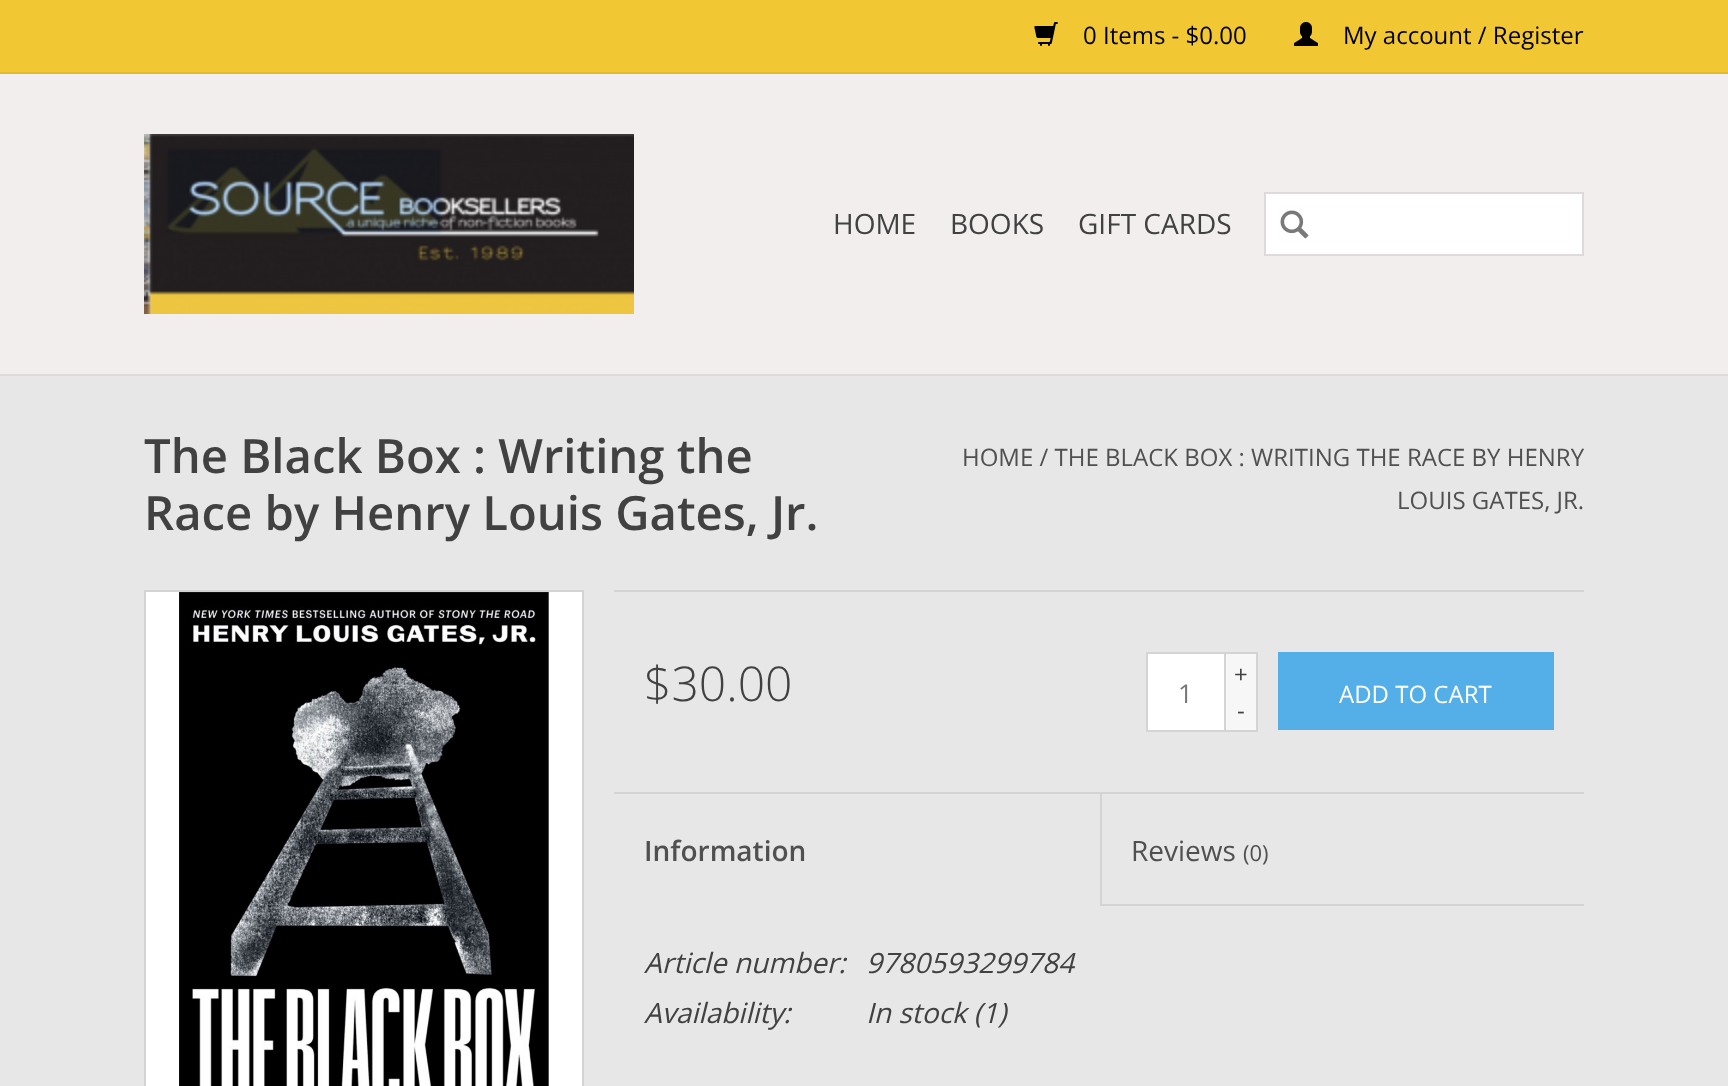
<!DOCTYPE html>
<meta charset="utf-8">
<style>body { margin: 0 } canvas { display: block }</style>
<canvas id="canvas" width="1728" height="1086"></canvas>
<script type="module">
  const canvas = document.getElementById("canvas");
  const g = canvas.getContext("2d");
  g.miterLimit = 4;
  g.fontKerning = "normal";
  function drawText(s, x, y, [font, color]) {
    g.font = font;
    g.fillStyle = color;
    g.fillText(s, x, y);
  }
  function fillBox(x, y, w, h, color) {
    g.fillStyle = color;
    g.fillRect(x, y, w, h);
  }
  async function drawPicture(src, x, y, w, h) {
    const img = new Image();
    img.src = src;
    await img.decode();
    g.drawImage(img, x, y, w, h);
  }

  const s1 = ["24px Open Sans", "#000000"];
  const s2 = ["28px Open Sans", "#414141"];
  const s3 = ["600 47.25px Open Sans", "#414141"];
  const s4 = ["24px Open Sans", "#505050"];
  const s5 = ["300 48px Open Sans", "#414141"];
  const s6 = ["26px Open Sans", "#777777"];
  const s7 = ["24px Open Sans", "#414141"];
  const s8 = ["24px Open Sans", "#FFFFFF"];
  const s9 = ["600 28px Open Sans", "#505050"];
  const s10 = ["28px Open Sans", "#505050"];
  const s11 = ["22px Open Sans", "#505050"];
  const s12 = ["italic 28px Open Sans", "#414141"];

  fillBox(0, 0, 1728, 1086, "#E7E7E7");
  fillBox(0, 74, 1728, 300, "#F2EEEE");
  fillBox(0, 374, 1728, 2, "#DEDADA");
  fillBox(0, 0, 1728, 72, "#F1C833");
  fillBox(0, 72, 1728, 2, "#E0BA2F");
  await drawPicture("pic1.png", 1034, 22, 24, 24);
  drawText("0 Items - $0.00", 1083, 44, s1);
  await drawPicture("pic2.png", 1294, 22, 24, 24);
  drawText("My account / Register", 1343, 44, s1);
  await drawPicture("pic3.png", 144, 134, 490, 180);
  drawText("HOME", 833, 234, s2);
  drawText("BOOKS", 950, 234, s2);
  drawText("GIFT CARDS", 1078, 234, s2);
  g.fillStyle = "#FFFFFF";
  g.beginPath();
  g.rect(1265, 193, 318, 62);
  g.fill();
  g.strokeStyle = "#DEDADA";
  g.lineWidth = 2;
  g.stroke();
  await drawPicture("pic4.png", 1280, 210, 29, 29);
  drawText("The Black Box : Writing the", 144, 473, s3);
  drawText("Race by Henry Louis Gates, Jr.", 144, 530, s3);
  drawText("HOME / THE BLACK BOX : WRITING THE RACE BY HENRY", 962, 466, s4);
  drawText("LOUIS GATES, JR.", 1397, 509, s4);
  g.strokeStyle = "#D4D4D4";
  g.strokeRect(145, 591, 438, 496);
  await drawPicture("pic5.png", 146, 592, 436, 494);
  fillBox(614, 590, 970, 2, "#D4D4D4");
  drawText("$30.00", 644, 701, s5);
  g.fillStyle = "#FFFFFF";
  g.beginPath();
  g.rect(1147, 653, 78, 78);
  g.fill();
  g.stroke();
  drawText("1", 1178, 703, s6);
  fillBox(1226, 654, 30, 76, "#F7F7F7");
  fillBox(1226, 652, 32, 2, "#D4D4D4");
  fillBox(1256, 652, 2, 80, "#D4D4D4");
  fillBox(1226, 730, 32, 2, "#D4D4D4");
  drawText("+", 1234, 683, s7);
  drawText("-", 1237, 719, s7);
  fillBox(1278, 652, 276, 78, "#54AFE9");
  drawText("ADD TO CART", 1339, 703, s8);
  fillBox(614, 792, 970, 2, "#D4D4D4");
  drawText("Information", 644, 861, s9);
  fillBox(1100, 904, 484, 2, "#D4D4D4");
  fillBox(1100, 794, 2, 112, "#D4D4D4");
  drawText("Reviews", 1131, 861, s10);
  drawText("(0)", 1243, 861, s11);
  drawText("Article number:", 644, 973, s12);
  drawText("9780593299784", 866, 973, s12);
  drawText("Availability:", 644, 1023, s12);
  drawText("In stock (1)", 866, 1023, s12);
</script>
